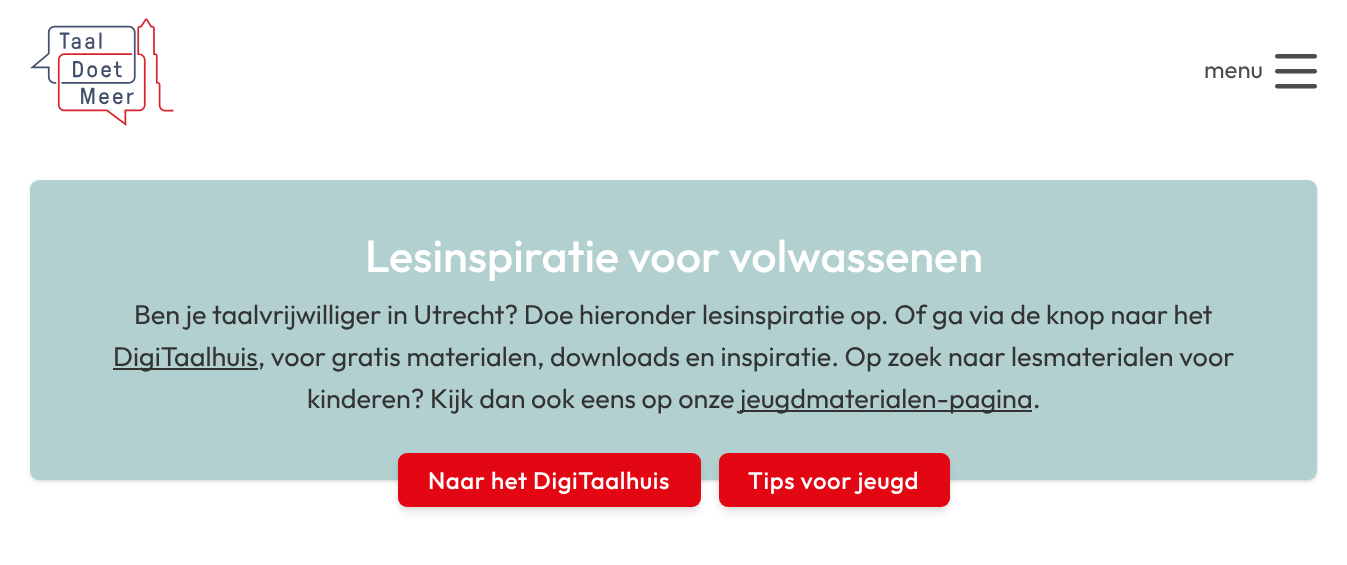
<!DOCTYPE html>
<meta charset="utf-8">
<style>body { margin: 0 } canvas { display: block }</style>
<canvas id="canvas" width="1347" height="565"></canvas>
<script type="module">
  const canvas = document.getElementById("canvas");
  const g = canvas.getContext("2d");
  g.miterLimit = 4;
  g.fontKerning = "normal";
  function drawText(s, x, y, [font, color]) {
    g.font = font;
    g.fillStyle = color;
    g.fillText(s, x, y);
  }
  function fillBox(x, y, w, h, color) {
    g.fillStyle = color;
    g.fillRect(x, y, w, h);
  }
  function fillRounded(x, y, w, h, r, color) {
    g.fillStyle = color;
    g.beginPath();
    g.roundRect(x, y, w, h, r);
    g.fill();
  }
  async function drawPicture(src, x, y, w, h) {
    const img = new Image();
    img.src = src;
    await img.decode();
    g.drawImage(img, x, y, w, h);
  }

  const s1 = ["24px Outfit", "#4D4D4D"];
  const s2 = ["500 45px Outfit", "#FFFFFF"];
  const s3 = ["27px Outfit", "#333333"];
  const s4 = ["500 24px Outfit", "#FFFFFF"];

  fillBox(0, 0, 1347, 565, "#FFFFFF");
  await drawPicture("pic1.png", 30, 18, 144, 108);
  drawText("menu", 1204, 78, s1);
  await drawPicture("pic2.png", 1275, 54, 42, 35);
  g.fillStyle = "rgba(0, 0, 0, 0.1)";
  g.filter = "blur(1.5px)";
  g.beginPath();
  g.roundRect(32, 183, 1284, 297, 8);
  g.fill();
  g.filter = "none";
  g.filter = "blur(2px)";
  g.beginPath();
  g.roundRect(30, 182, 1287, 300, 9);
  g.fill();
  g.filter = "none";
  fillRounded(30, 180, 1287, 300, 9, "#B3D0D0");
  drawText("Lesinspiratie voor volwassenen", 365, 272, s2);
  drawText("Ben je taalvrijwilliger in Utrecht? Doe hieronder lesinspiratie op. Of ga via de knop naar het", 134, 324, s3);
  fillBox(113, 368, 145, 2, "#333333");
  drawText("DigiTaalhuis, voor gratis materialen, downloads en inspiratie. Op zoek naar lesmaterialen voor", 113, 366, s3);
  drawText("kinderen? Kijk dan ook eens op onze", 307, 408, s3);
  fillBox(740, 410, 292, 2, "#333333");
  drawText("jeugdmaterialen-pagina.", 740, 408, s3);
  g.fillStyle = "rgba(0, 0, 0, 0.1)";
  g.filter = "blur(3px)";
  g.beginPath();
  g.roundRect(401, 459, 297, 48, 6);
  g.fill();
  g.filter = "none";
  g.filter = "blur(4.5px)";
  g.beginPath();
  g.roundRect(399, 461, 300, 51, 8);
  g.fill();
  g.filter = "none";
  fillRounded(398, 453, 303, 54, 9, "#E30613");
  g.letterSpacing = "0.6px";
  drawText("Naar het DigiTaalhuis", 428, 489, s4);
  g.fillStyle = "rgba(0, 0, 0, 0.1)";
  g.filter = "blur(3px)";
  g.beginPath();
  g.roundRect(722, 459, 225, 48, 6);
  g.fill();
  g.filter = "none";
  g.filter = "blur(4.5px)";
  g.beginPath();
  g.roundRect(720, 461, 228, 51, 8);
  g.fill();
  g.filter = "none";
  fillRounded(719, 453, 231, 54, 9, "#E30613");
  drawText("Tips voor jeugd", 748, 489, s4);
</script>
